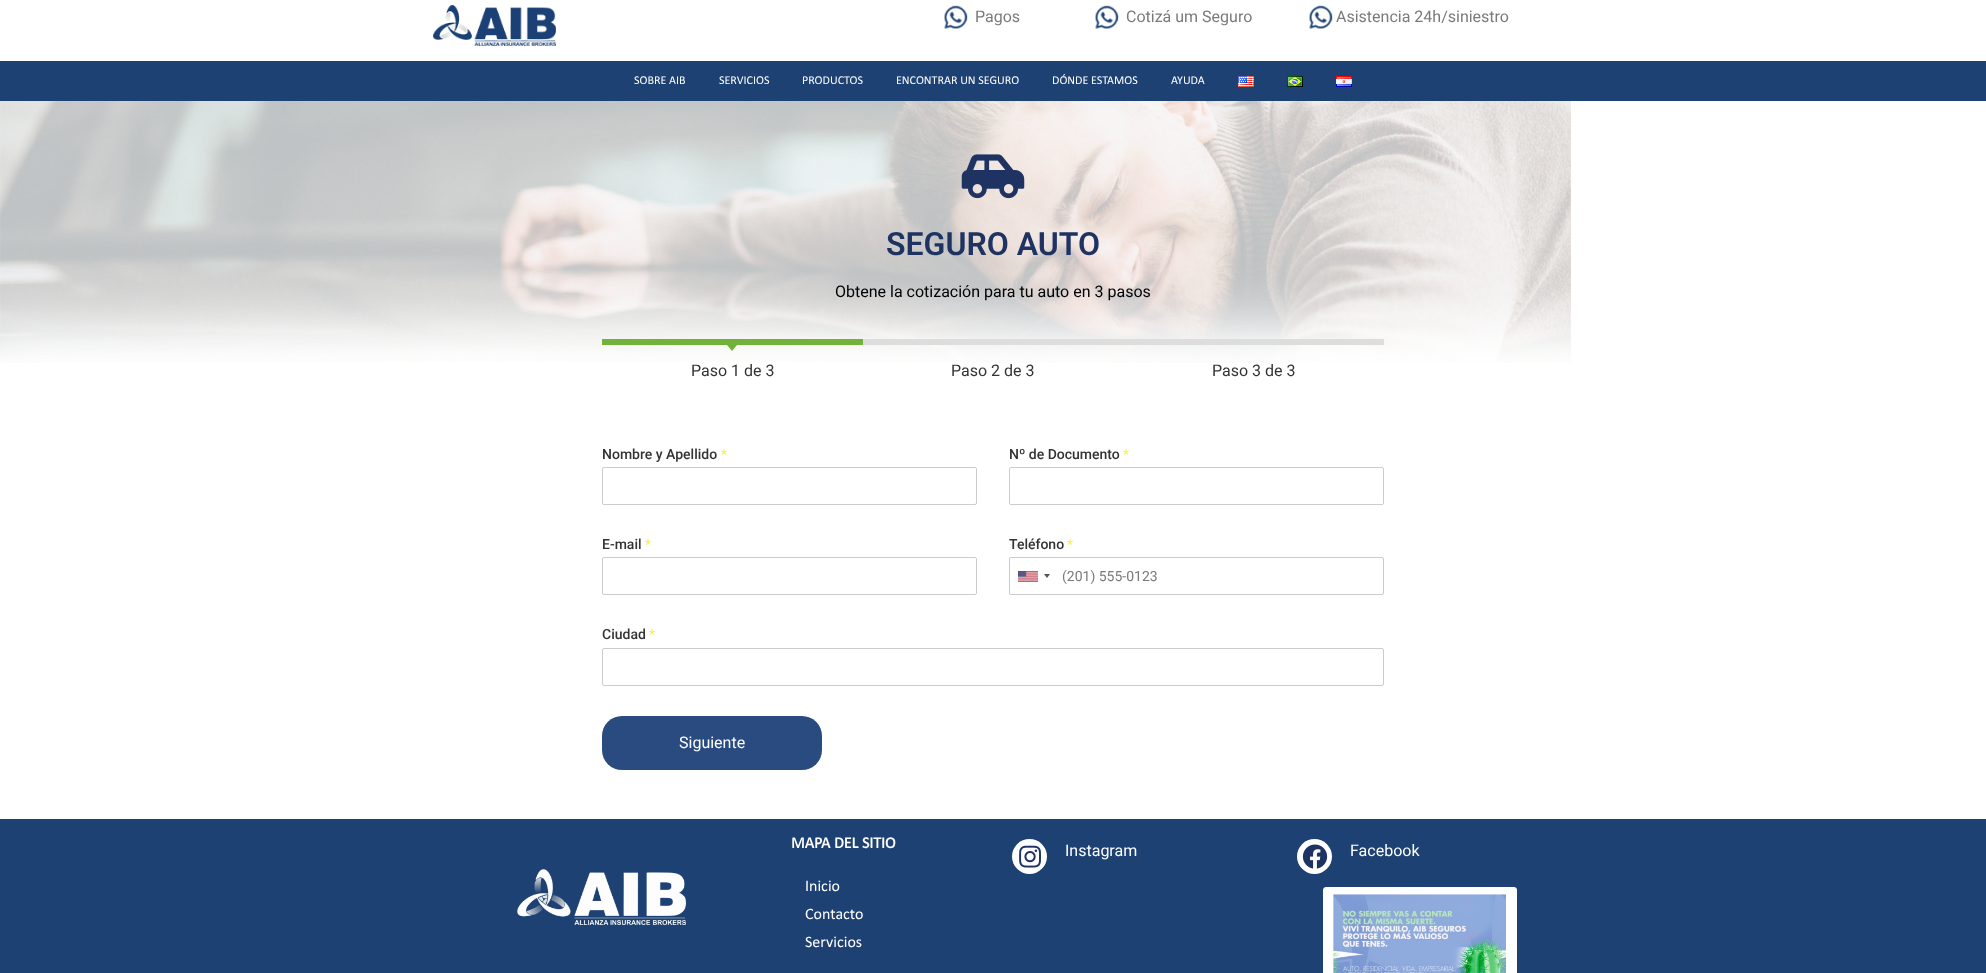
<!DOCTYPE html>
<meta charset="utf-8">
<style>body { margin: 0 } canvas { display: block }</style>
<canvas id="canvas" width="1986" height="973"></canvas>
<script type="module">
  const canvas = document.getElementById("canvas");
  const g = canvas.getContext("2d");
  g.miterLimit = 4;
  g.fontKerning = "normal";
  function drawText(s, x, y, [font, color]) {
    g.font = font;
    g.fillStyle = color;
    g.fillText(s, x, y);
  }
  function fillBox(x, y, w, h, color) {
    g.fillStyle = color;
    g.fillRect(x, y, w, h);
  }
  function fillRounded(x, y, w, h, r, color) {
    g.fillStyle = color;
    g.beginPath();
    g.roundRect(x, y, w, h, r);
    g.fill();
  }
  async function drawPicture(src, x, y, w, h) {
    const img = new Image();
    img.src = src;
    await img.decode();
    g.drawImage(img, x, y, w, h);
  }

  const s1 = ["16px Roboto", "#7A7A7A"];
  const s2 = ["12px Calibri", "#FFFFFF"];
  const s3 = ["600 32px Roboto", "#1F3362"];
  const s4 = ["16px Roboto", "#000000"];
  const s5 = ["16px Roboto", "#333333"];
  const s6 = ["500 14px Roboto", "#333333"];
  const s7 = ["14px Roboto", "#FFEB3B"];
  const s8 = ["14px Roboto", "#7A7A7A"];
  const s9 = ["16px Roboto", "#FFFFFF"];
  const s10 = ["bold 16px Calibri", "#FFFFFF"];
  const s11 = ["16px Calibri", "#FFFFFF"];

  fillBox(0, 0, 1986, 973, "#FFFFFF");
  await drawPicture("pic1.png", 433, 5, 123, 41);
  await drawPicture("pic2.png", 944, 5, 24, 24);
  drawText("Pagos", 975, 22, s1);
  await drawPicture("pic2.png", 1095, 5, 24, 24);
  drawText("Cotizá um Seguro", 1126, 22, s1);
  await drawPicture("pic2.png", 1309, 5, 24, 24);
  drawText("Asistencia 24h/siniestro", 1336, 22, s1);
  fillBox(0, 61, 1986, 40, "#1D4172");
  drawText("SOBRE AIB", 634, 84, s2);
  drawText("SERVICIOS", 719, 84, s2);
  drawText("PRODUCTOS", 802, 84, s2);
  drawText("ENCONTRAR UN SEGURO", 896, 84, s2);
  drawText("DÓNDE ESTAMOS", 1052, 84, s2);
  drawText("AYUDA", 1171, 84, s2);
  await drawPicture("pic3.png", 1238, 76, 16, 11);
  await drawPicture("pic4.png", 1287, 76, 16, 11);
  await drawPicture("pic5.png", 1336, 76, 16, 11);
  await drawPicture("pic6.png", 0, 101, 1571, 262);
  await drawPicture("pic7.png", 961, 154, 64, 45);
  drawText("SEGURO AUTO", 886, 255, s3);
  drawText("Obtene la cotización para tu auto en 3 pasos", 835, 297, s4);
  fillBox(602, 339, 261, 6, "#72B239");
  g.beginPath();
  g.moveTo(727, 345);
  g.lineTo(737, 345);
  g.lineTo(732, 351);
  g.closePath();
  g.fill();
  drawText("Paso 1 de 3", 691, 376, s5);
  fillBox(863, 339, 521, 6, "#DDDDDD");
  drawText("Paso 2 de 3", 951, 376, s5);
  drawText("Paso 3 de 3", 1212, 376, s5);
  drawText("Nombre y Apellido", 602, 459, s6);
  drawText("*", 721, 459, s7);
  g.beginPath();
  g.roundRect(602.5, 467.5, 374, 37, 1.5);
  g.strokeStyle = "#CCCCCC";
  g.stroke();
  drawText("Nº de Documento", 1009, 459, s6);
  drawText("*", 1123, 459, s7);
  g.beginPath();
  g.roundRect(1009.5, 467.5, 374, 37, 1.5);
  g.stroke();
  drawText("E-mail", 602, 549, s6);
  drawText("*", 645, 549, s7);
  g.beginPath();
  g.roundRect(602.5, 557.5, 374, 37, 1.5);
  g.stroke();
  drawText("Teléfono", 1009, 549, s6);
  drawText("*", 1067, 549, s7);
  g.beginPath();
  g.roundRect(1009.5, 557.5, 374, 37, 1.5);
  g.stroke();
  g.fillStyle = "#888888";
  g.filter = "blur(0.5px)";
  g.beginPath();
  g.rect(1018, 571, 20, 11);
  g.fill();
  g.filter = "none";
  await drawPicture("pic8.png", 1018, 571, 20, 11);
  g.fillStyle = "#555555";
  g.beginPath();
  g.moveTo(1044, 574);
  g.lineTo(1050, 574);
  g.lineTo(1047, 578);
  g.closePath();
  g.fill();
  drawText("(201) 555-0123", 1062, 581, s8);
  drawText("Ciudad", 602, 639, s6);
  drawText("*", 649, 639, s7);
  g.beginPath();
  g.roundRect(602.5, 648.5, 781, 37, 1.5);
  g.stroke();
  fillRounded(602, 716, 220, 54, 20, "#2A4B80");
  drawText("Siguiente", 679, 748, s9);
  fillBox(0, 819, 1986, 154, "#1D4172");
  drawText("MAPA DEL SITIO", 791, 848, s10);
  drawText("Inicio", 805, 891, s11);
  drawText("Contacto", 805, 919, s11);
  drawText("Servicios", 805, 947, s11);
  g.beginPath();
  g.arc(1029.5, 856.5, 17.5, 0, Math.PI * 2);
  g.fill();
  await drawPicture("pic9.png", 1019, 845, 22, 23);
  drawText("Instagram", 1065, 856, s9);
  g.beginPath();
  g.arc(1314.5, 856.5, 17.5, 0, Math.PI * 2);
  g.fill();
  await drawPicture("pic10.png", 1302, 844, 26, 25);
  drawText("Facebook", 1350, 856, s9);
  await drawPicture("pic11.png", 1323, 887, 194, 86);
  await drawPicture("pic12.png", 517, 869, 169, 56);
</script>
